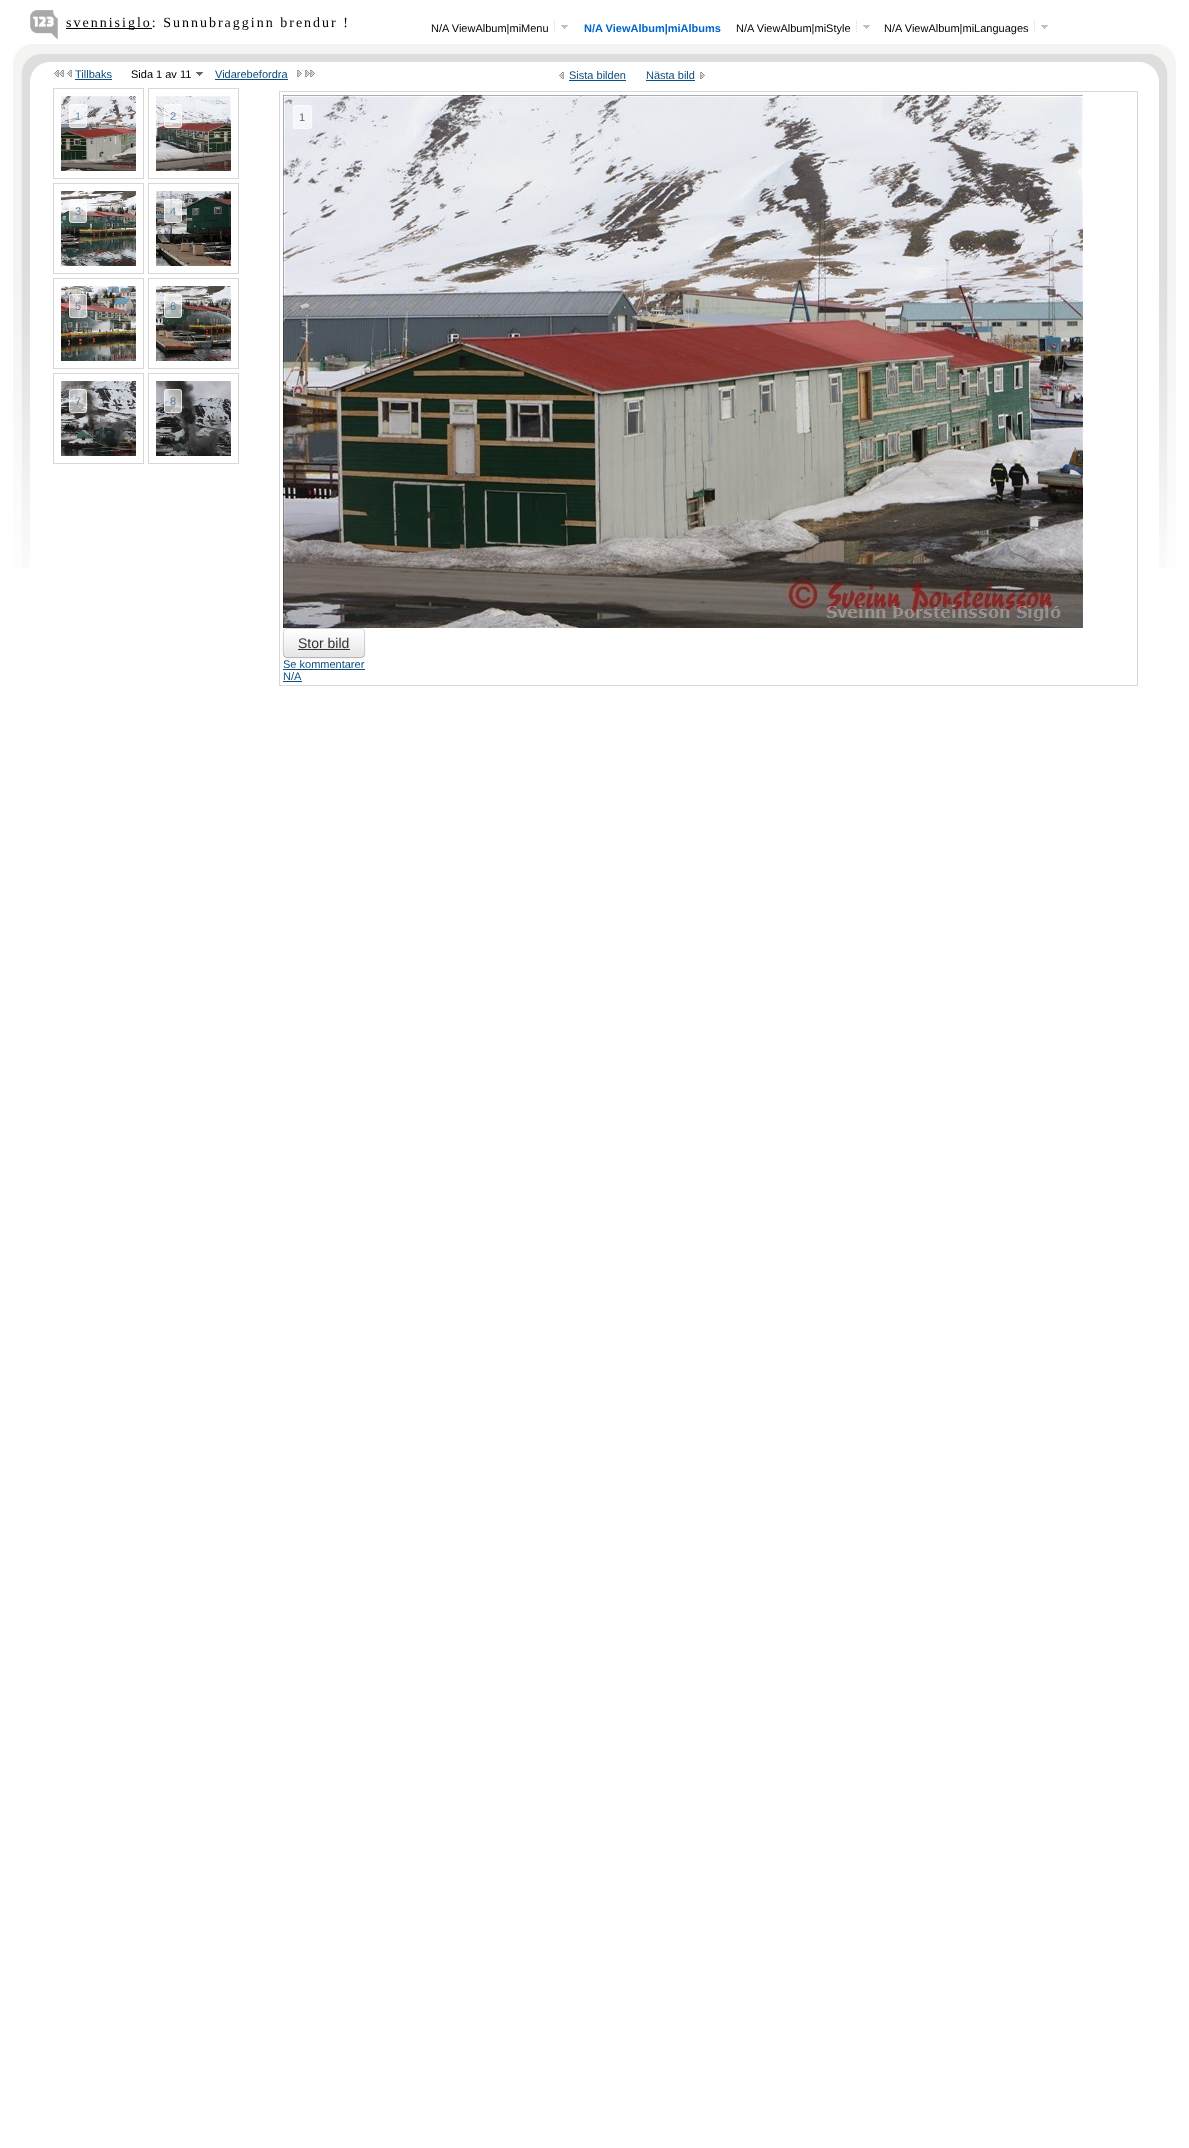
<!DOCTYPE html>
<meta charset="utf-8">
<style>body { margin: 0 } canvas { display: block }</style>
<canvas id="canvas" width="1189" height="2148"></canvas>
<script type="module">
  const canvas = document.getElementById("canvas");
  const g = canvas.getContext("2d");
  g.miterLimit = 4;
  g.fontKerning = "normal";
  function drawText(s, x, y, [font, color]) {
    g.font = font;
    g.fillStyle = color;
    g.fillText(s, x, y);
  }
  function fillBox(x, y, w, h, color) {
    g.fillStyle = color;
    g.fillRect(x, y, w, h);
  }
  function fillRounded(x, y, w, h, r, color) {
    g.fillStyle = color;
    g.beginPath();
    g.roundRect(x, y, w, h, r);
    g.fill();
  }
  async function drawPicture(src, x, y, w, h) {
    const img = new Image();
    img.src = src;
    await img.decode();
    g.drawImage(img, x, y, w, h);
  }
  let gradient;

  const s1 = ["14px Liberation Serif", "#000000"];
  const s2 = ["11px Liberation Sans", "#000000"];
  const s3 = ["bold 11px Liberation Sans", "#0066CC"];
  const s4 = ["11px Liberation Sans", "#0C4D80"];
  const s5 = ["11px Liberation Sans", "#648BAB"];
  const s6 = ["11px Liberation Sans", "#5E84A2"];
  const s7 = ["11px Liberation Sans", "#5B7D9B"];
  const s8 = ["11px Liberation Sans", "#537C9A"];
  const s9 = ["11px Liberation Sans", "#5C5D60"];
  const s10 = ["14px Liberation Sans", "#333333"];

  fillBox(0, 0, 1189, 2148, "#FFFFFF");
  await drawPicture("pic1.png", 30, 10, 28, 29);
  await drawPicture("pic2.png", 13, 44, 38, 42);
  await drawPicture("pic3.png", 51, 44, 1087, 18);
  fillBox(66, 28, 86, 1, "#000000");
  g.letterSpacing = "2px";
  drawText("svennisiglo: Sunnubragginn brendur !", 66, 27, s1);
  g.letterSpacing = "0px";
  drawText("N/A ViewAlbum|miMenu", 431, 32, s2);
  await drawPicture("pic4.png", 554, 21, 14, 11);
  drawText("N/A ViewAlbum|miAlbums", 584, 32, s3);
  drawText("N/A ViewAlbum|miStyle", 736, 32, s2);
  await drawPicture("pic4.png", 856, 21, 14, 11);
  drawText("N/A ViewAlbum|miLanguages", 884, 32, s2);
  await drawPicture("pic4.png", 1034, 21, 14, 11);
  await drawPicture("pic5.png", 54, 70, 10, 7);
  await drawPicture("pic6.png", 67, 70, 5, 7);
  drawText("Tillbaks", 75, 78, s4);
  fillBox(75, 79, 37, 1, "#0C4D80");
  drawText("Sida 1 av 11", 131, 78, s2);
  await drawPicture("pic7.png", 196, 72, 7, 4);
  drawText("Vidarebefordra", 215, 78, s4);
  fillBox(215, 79, 73, 1, "#0C4D80");
  await drawPicture("pic8.png", 297, 70, 5, 7);
  await drawPicture("pic9.png", 305, 70, 10, 7);
  await drawPicture("pic6.png", 559, 72, 5, 7);
  drawText("Sista bilden", 569, 79, s4);
  fillBox(569, 80, 57, 1, "#0C4D80");
  drawText("Nästa bild", 646, 79, s4);
  fillBox(646, 80, 49, 1, "#0C4D80");
  await drawPicture("pic8.png", 700, 72, 5, 7);
  await drawPicture("pic10.png", 1138, 44, 38, 42);
  await drawPicture("pic11.png", 13, 86, 17, 482);
  g.strokeStyle = "#D7D7D7";
  g.strokeRect(53.5, 88.5, 90, 90);
  await drawPicture("pic12.png", 61, 96, 75, 75);
  fillRounded(69, 104, 18, 24, 3, "rgba(255, 255, 255, 0.6)");
  g.beginPath();
  g.roundRect(69.5, 104.5, 17, 23, 2.5);
  g.strokeStyle = "rgba(255, 255, 255, 0.6)";
  g.stroke();
  drawText("1", 75, 120, s5);
  g.strokeStyle = "#D7D7D7";
  g.strokeRect(148.5, 88.5, 90, 90);
  await drawPicture("pic13.png", 156, 96, 75, 75);
  fillRounded(164, 104, 18, 24, 3, "rgba(255, 255, 255, 0.6)");
  g.beginPath();
  g.roundRect(164.5, 104.5, 17, 23, 2.5);
  g.strokeStyle = "rgba(255, 255, 255, 0.6)";
  g.stroke();
  drawText("2", 170, 120, s5);
  g.strokeStyle = "#D7D7D7";
  g.strokeRect(53.5, 183.5, 90, 90);
  await drawPicture("pic14.png", 61, 191, 75, 75);
  fillRounded(69, 199, 18, 24, 3, "rgba(255, 255, 255, 0.6)");
  g.beginPath();
  g.roundRect(69.5, 199.5, 17, 23, 2.5);
  g.strokeStyle = "rgba(255, 255, 255, 0.6)";
  g.stroke();
  drawText("3", 75, 215, s6);
  g.strokeStyle = "#D7D7D7";
  g.strokeRect(148.5, 183.5, 90, 90);
  await drawPicture("pic15.png", 156, 191, 75, 75);
  fillRounded(164, 199, 18, 24, 3, "rgba(255, 255, 255, 0.6)");
  g.beginPath();
  g.roundRect(164.5, 199.5, 17, 23, 2.5);
  g.strokeStyle = "rgba(255, 255, 255, 0.6)";
  g.stroke();
  drawText("4", 170, 215, s6);
  g.strokeStyle = "#D7D7D7";
  g.strokeRect(53.5, 278.5, 90, 90);
  await drawPicture("pic16.png", 61, 286, 75, 75);
  fillRounded(69, 294, 18, 24, 3, "rgba(255, 255, 255, 0.6)");
  g.beginPath();
  g.roundRect(69.5, 294.5, 17, 23, 2.5);
  g.strokeStyle = "rgba(255, 255, 255, 0.6)";
  g.stroke();
  drawText("5", 75, 310, s7);
  g.strokeStyle = "#D7D7D7";
  g.strokeRect(148.5, 278.5, 90, 90);
  await drawPicture("pic17.png", 156, 286, 75, 75);
  fillRounded(164, 294, 18, 24, 3, "rgba(255, 255, 255, 0.6)");
  g.beginPath();
  g.roundRect(164.5, 294.5, 17, 23, 2.5);
  g.strokeStyle = "rgba(255, 255, 255, 0.6)";
  g.stroke();
  drawText("6", 170, 310, s8);
  g.strokeStyle = "#D7D7D7";
  g.strokeRect(53.5, 373.5, 90, 90);
  await drawPicture("pic18.png", 61, 381, 75, 75);
  fillRounded(69, 389, 18, 24, 3, "rgba(255, 255, 255, 0.6)");
  g.beginPath();
  g.roundRect(69.5, 389.5, 17, 23, 2.5);
  g.strokeStyle = "rgba(255, 255, 255, 0.6)";
  g.stroke();
  drawText("7", 75, 405, s6);
  g.strokeStyle = "#D7D7D7";
  g.strokeRect(148.5, 373.5, 90, 90);
  await drawPicture("pic19.png", 156, 381, 75, 75);
  fillRounded(164, 389, 18, 24, 3, "rgba(255, 255, 255, 0.6)");
  g.beginPath();
  g.roundRect(164.5, 389.5, 17, 23, 2.5);
  g.strokeStyle = "rgba(255, 255, 255, 0.6)";
  g.stroke();
  drawText("8", 170, 405, s7);
  g.strokeStyle = "#D7D7D7";
  g.strokeRect(279.5, 91.5, 858, 594);
  await drawPicture("pic20.png", 283, 95, 800, 533);
  fillRounded(293, 105, 19, 24, 3, "rgba(255, 255, 255, 0.6)");
  g.beginPath();
  g.roundRect(293.5, 105.5, 18, 23, 2.5);
  g.strokeStyle = "rgba(255, 255, 255, 0.6)";
  g.stroke();
  drawText("1", 299, 121, s9);
  g.fillStyle = "rgba(0, 0, 0, 0.05)";
  g.filter = "blur(1px)";
  g.beginPath();
  g.roundRect(283, 629, 82, 30, 4);
  g.fill();
  g.filter = "none";
  fillRounded(283, 628, 82, 30, 4, "#F5F5F5");
  g.save();
  g.beginPath();
  g.roundRect(283, 628, 82, 30, 4);
  g.clip();
  gradient = g.createLinearGradient(324, 629, 324, 657);
  gradient.addColorStop(0, "#FFFFFF");
  gradient.addColorStop(1, "#E6E6E6");
  g.fillStyle = gradient;
  g.fillRect(283, 629, 82, 28);
  g.restore();
  g.beginPath();
  g.moveTo(363.5, 656.5);
  g.lineTo(361.5, 657.5);
  g.lineTo(286.5, 657.5);
  g.lineTo(284.5, 656.5);
  g.strokeStyle = "rgba(0, 0, 0, 0.25)";
  g.stroke();
  g.beginPath();
  g.moveTo(284.5, 656.5);
  g.bezierCurveTo(282.5, 654.5, 283.5, 646, 283.5, 643);
  g.bezierCurveTo(283.5, 626, 281.5, 628.5, 299.5, 628.5);
  g.lineTo(348.5, 628.5);
  g.bezierCurveTo(366.5, 628.5, 364.5, 626, 364.5, 643);
  g.bezierCurveTo(364.5, 646, 365.5, 654.5, 363.5, 656.5);
  g.strokeStyle = "rgba(0, 0, 0, 0.15)";
  g.stroke();
  drawText("Stor bild", 298, 648, s10);
  fillBox(298, 649, 52, 1, "#333333");
  drawText("Se kommentarer", 283, 668, s4);
  fillBox(283, 669, 82, 1, "#0C4D80");
  drawText("N/A", 283, 680, s4);
  fillBox(283, 681, 19, 1, "#0C4D80");
  await drawPicture("pic21.png", 1159, 86, 17, 482);
</script>
